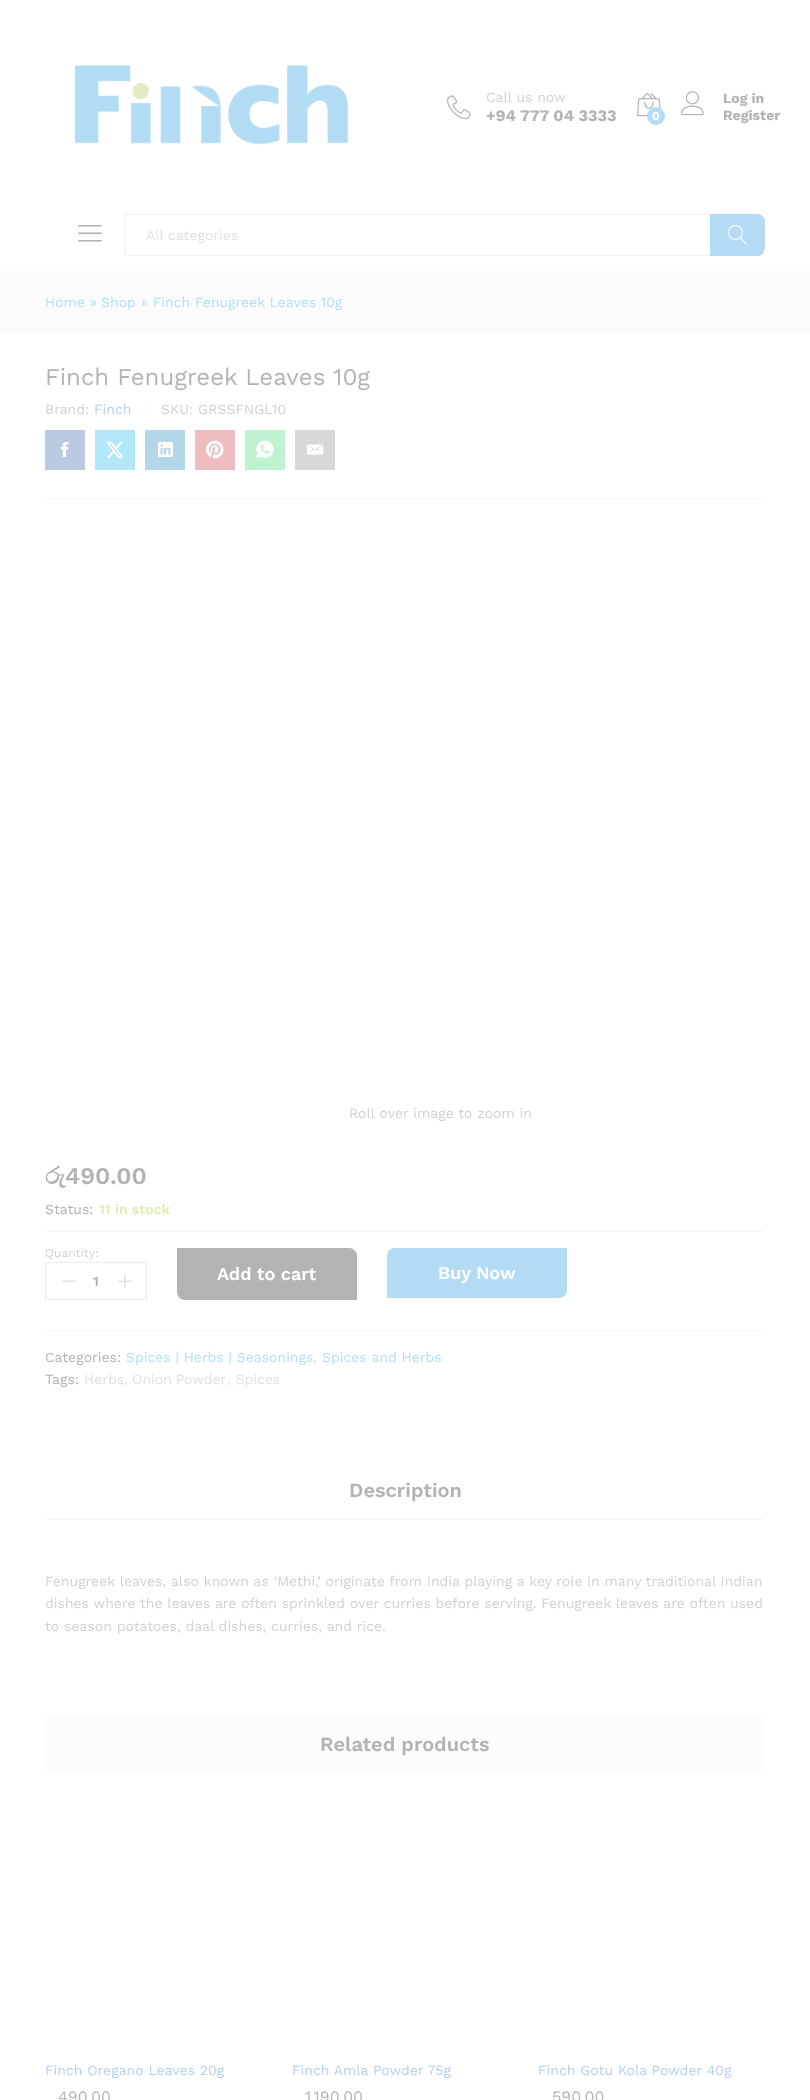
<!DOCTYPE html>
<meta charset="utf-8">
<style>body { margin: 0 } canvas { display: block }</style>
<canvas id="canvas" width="810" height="2100"></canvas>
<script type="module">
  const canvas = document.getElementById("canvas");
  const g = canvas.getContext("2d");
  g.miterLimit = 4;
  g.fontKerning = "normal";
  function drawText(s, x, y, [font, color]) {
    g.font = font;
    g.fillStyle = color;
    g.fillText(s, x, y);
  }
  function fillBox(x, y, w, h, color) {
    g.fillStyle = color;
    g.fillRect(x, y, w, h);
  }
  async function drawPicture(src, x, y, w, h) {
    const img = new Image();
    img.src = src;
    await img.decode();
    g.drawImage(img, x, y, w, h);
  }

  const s1 = ["14px Work Sans", "#D1D1D1"];
  const s2 = ["bold 16px Work Sans", "#B3B3B3"];
  const s3 = ["bold 12px Work Sans", "#FFFFFF"];
  const s4 = ["bold 14px Work Sans", "#B3B3B3"];
  const s5 = ["14px Work Sans", "#E0E0E0"];
  const s6 = ["14px Work Sans", "#B3E0F0"];
  const s7 = ["24px Work Sans", "#B3B3B3"];
  const s8 = ["14px Work Sans", "#B3D1F0"];
  const s9 = ["bold 24px FreeSerif", "#B3B3B3"];
  const s10 = ["600 24px Work Sans", "#B3B3B3"];
  const s11 = ["14px Work Sans", "#B3B3B3"];
  const s12 = ["600 14px Work Sans", "#DCEEB3"];
  const s13 = ["12px Work Sans", "#D1D1D1"];
  const s14 = ["600 14px Work Sans", "#B3B3B3"];
  const s15 = ["600 18px Work Sans", "#FFFFFF"];
  const s16 = ["600 20px Work Sans", "#B3B3B3"];
  const s17 = ["16px Work Sans", "#B3B3B3"];

  fillBox(0, 0, 810, 2100, "#FFFFFF");
  await drawPicture("pic1.png", 74, 64, 275, 81);
  await drawPicture("pic2.png", 447, 95, 24, 25);
  drawText("Call us now", 486, 102, s1);
  drawText("+94 777 04 3333", 486, 121, s2);
  await drawPicture("pic3.png", 637, 92, 24, 25);
  g.fillStyle = "#B3DBF4";
  g.beginPath();
  g.arc(656, 116, 9, 0, Math.PI * 2);
  g.fill();
  drawText("0", 652, 120, s3);
  await drawPicture("pic4.png", 681, 91, 23, 25);
  drawText("Log in", 723, 103, s4);
  drawText("Register", 723, 120, s4);
  await drawPicture("pic5.png", 78, 225, 24, 17);
  fillBox(125, 214, 585, 1, "#F0F0F0");
  fillBox(125, 255, 585, 1, "#F0F0F0");
  fillBox(125, 214, 1, 42, "#F0F0F0");
  drawText("All categories", 146, 240, s5);
  g.fillStyle = "#B3DBF4";
  g.beginPath();
  g.roundRect(710, 214, 55, 42, [0, 8, 8, 0]);
  g.fill();
  await drawPicture("pic6.png", 728, 225, 19, 20);
  fillBox(0, 271, 810, 62, "#FBFBFB");
  drawText("Home", 45, 307, s6);
  drawText("»", 90, 307, s6);
  drawText("Shop", 101, 307, s6);
  drawText("» Finch Fenugreek Leaves 10g", 141, 307, s6);
  fillBox(45, 498, 720, 1, "#F6F6F6");
  drawText("Finch Fenugreek Leaves 10g", 45, 385, s7);
  drawText("Brand:", 45, 414, s1);
  drawText("Finch", 94, 414, s8);
  fillBox(146, 403, 1, 13, "#F8F8F8");
  drawText("SKU: GRSSFNGL10", 161, 414, s1);
  fillBox(45, 430, 40, 40, "#BBCAE1");
  await drawPicture("pic7.png", 61, 442, 8, 15);
  fillBox(95, 430, 40, 40, "#B3E7FA");
  await drawPicture("pic8.png", 106, 441, 18, 18);
  fillBox(145, 430, 40, 40, "#B3D6E9");
  await drawPicture("pic9.png", 158, 442, 15, 15);
  fillBox(195, 430, 40, 40, "#EFBDC0");
  await drawPicture("pic10.png", 206, 440, 18, 19);
  fillBox(245, 430, 40, 40, "#BEF2D1");
  await drawPicture("pic11.png", 256, 440, 18, 19);
  fillBox(295, 430, 40, 40, "#D8D8D8");
  await drawPicture("pic12.png", 307, 444, 17, 11);
  drawText("Roll over image to zoom in", 349, 1118, s1);
  drawText("රු", 45, 1184, s9);
  drawText("490.00", 65, 1184, s10);
  fillBox(45, 1231, 720, 1, "#F6F6F6");
  drawText("Status:", 45, 1214, s11);
  drawText("11 in stock", 99, 1214, s12);
  drawText("Quantity:", 45, 1257, s13);
  g.strokeStyle = "#ECECEC";
  g.strokeRect(45.5, 1262.5, 101, 37);
  await drawPicture("pic13.png", 62, 1280, 14, 2);
  drawText("1", 93, 1286, s14);
  await drawPicture("pic14.png", 118, 1274, 14, 14);
  g.beginPath();
  g.roundRect(177, 1248, 180, 52, [0, 8, 0, 8]);
  g.fill();
  drawText("Add to cart", 217, 1280, s15);
  g.fillStyle = "#B3DBF4";
  g.beginPath();
  g.roundRect(387, 1248, 180, 50, [8, 0, 8, 0]);
  g.fill();
  drawText("Buy Now", 438, 1279, s15);
  fillBox(45, 1330, 720, 1, "#F6F6F6");
  drawText("Categories:", 45, 1362, s11);
  drawText("Spices | Herbs | Seasonings", 126, 1362, s6);
  drawText(",", 313, 1362, s5);
  drawText("Spices and Herbs", 322, 1362, s6);
  drawText("Tags:", 45, 1384, s11);
  drawText("Herbs,", 84, 1384, s5);
  g.wordSpacing = "-1px";
  drawText("Onion Powder", 132, 1384, s5);
  g.wordSpacing = "0px";
  drawText(", Spices", 227, 1384, s5);
  fillBox(45, 1519, 720, 1, "#F6F6F6");
  drawText("Description", 349, 1497, s16);
  drawText("Fenugreek leaves, also known as ‘Methi,’ originate from India playing a key role in many traditional Indian", 45, 1586, s1);
  drawText("dishes where the leaves are often sprinkled over curries before serving. Fenugreek leaves are often used", 45, 1608, s1);
  drawText("to season potatoes, daal dishes, curries, and rice.", 45, 1631, s1);
  fillBox(45, 1717, 720, 54, "#FCFCFC");
  fillBox(45, 1771, 720, 1, "#F7F7F7");
  drawText("Related products", 320, 1751, s16);
  drawText("Finch Oregano Leaves 20g", 45, 2075, s8);
  drawText("490.00", 58, 2102, s17);
  drawText("Finch Amla Powder 75g", 292, 2075, s8);
  drawText("1,190.00", 305, 2102, s17);
  drawText("Finch Gotu Kola Powder 40g", 538, 2075, s8);
  drawText("590.00", 552, 2102, s17);
</script>
